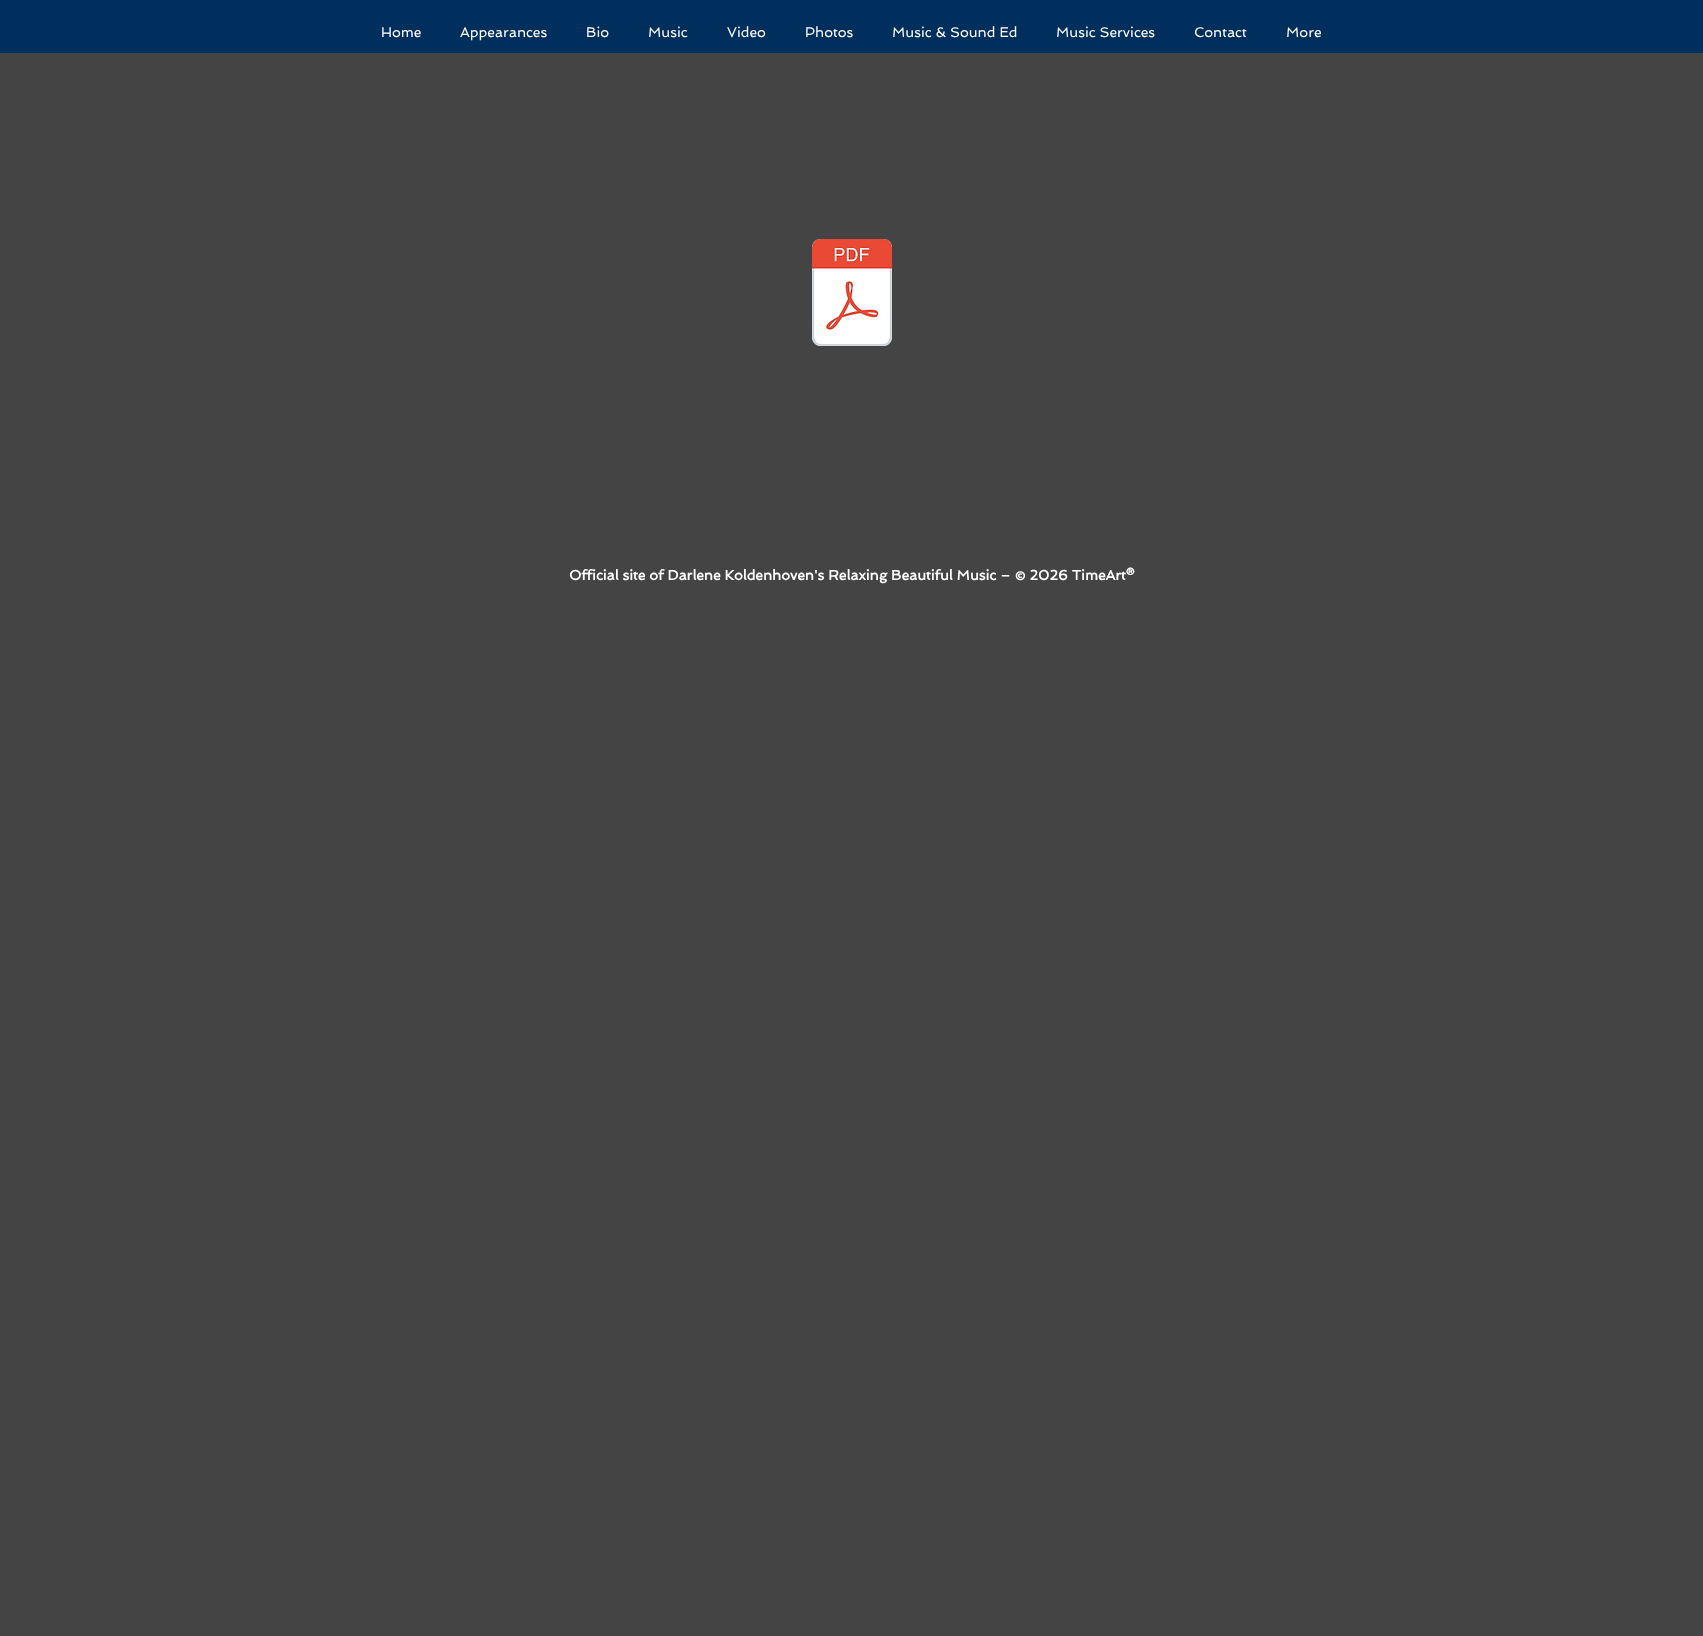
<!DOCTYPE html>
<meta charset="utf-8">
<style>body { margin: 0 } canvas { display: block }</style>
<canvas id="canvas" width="1703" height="1636"></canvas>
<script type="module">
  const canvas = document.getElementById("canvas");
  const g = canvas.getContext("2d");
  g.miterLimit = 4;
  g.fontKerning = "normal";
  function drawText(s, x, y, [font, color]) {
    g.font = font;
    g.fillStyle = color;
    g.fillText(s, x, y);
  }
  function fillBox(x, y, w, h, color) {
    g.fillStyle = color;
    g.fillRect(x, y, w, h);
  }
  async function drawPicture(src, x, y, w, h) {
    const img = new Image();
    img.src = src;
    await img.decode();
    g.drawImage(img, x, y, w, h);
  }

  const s1 = ["14px Spinnaker", "#FFFFFF"];
  const s2 = ["bold 14px Spinnaker", "#FFFFFF"];

  fillBox(0, 0, 1703, 1636, "#444444");
  fillBox(0, 0, 1703, 53, "#002E5D");
  drawText("Home", 381, 37, s1);
  drawText("Appearances", 460, 37, s1);
  drawText("Bio", 586, 37, s1);
  drawText("Music", 648, 37, s1);
  drawText("Video", 727, 37, s1);
  drawText("Photos", 805, 37, s1);
  drawText("Music & Sound Ed", 892, 37, s1);
  drawText("Music Services", 1056, 37, s1);
  drawText("Contact", 1194, 37, s1);
  drawText("More", 1286, 37, s1);
  await drawPicture("pic1.png", 812, 239, 80, 107);
  drawText("Official site of Darlene Koldenhoven's Relaxing Beautiful Music – © 2026 TimeArt®", 569, 580, s2);
</script>
